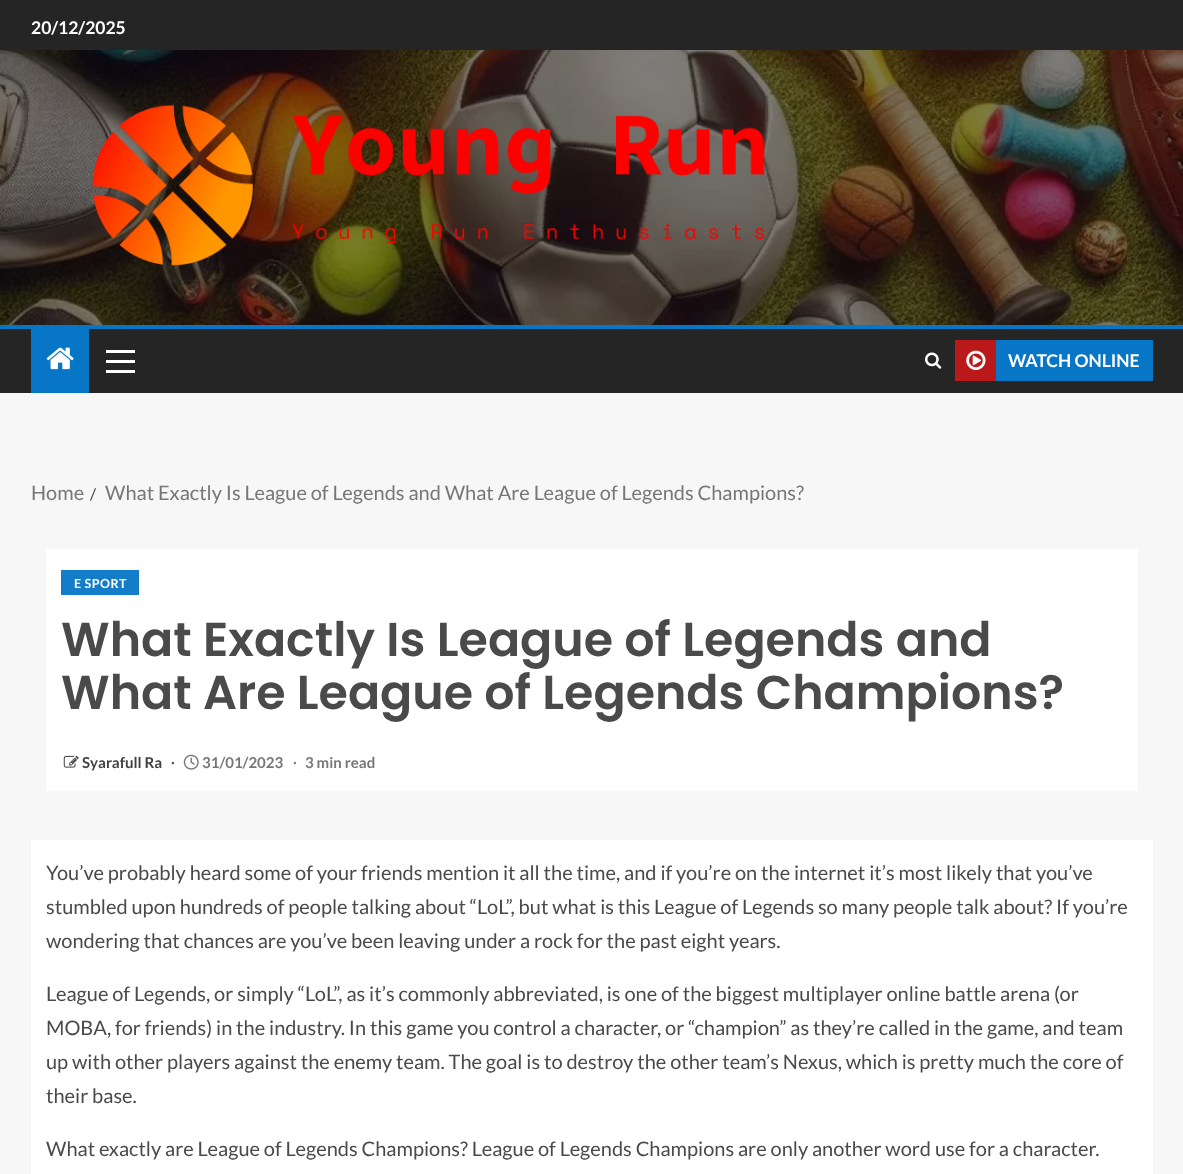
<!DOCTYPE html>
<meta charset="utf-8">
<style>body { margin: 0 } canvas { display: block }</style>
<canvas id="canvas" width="1183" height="1174"></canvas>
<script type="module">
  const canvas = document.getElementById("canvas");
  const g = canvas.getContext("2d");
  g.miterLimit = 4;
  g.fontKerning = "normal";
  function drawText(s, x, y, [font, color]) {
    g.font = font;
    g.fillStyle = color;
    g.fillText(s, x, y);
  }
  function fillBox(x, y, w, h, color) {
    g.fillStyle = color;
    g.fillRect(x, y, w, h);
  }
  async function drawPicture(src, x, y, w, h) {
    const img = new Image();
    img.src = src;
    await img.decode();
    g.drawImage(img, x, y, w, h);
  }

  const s1 = ["bold 17.5px Lato", "#FFFFFF"];
  const s2 = ["20px Lato", "#777777"];
  const s3 = ["16px Lato", "#393E46"];
  const s4 = ["bold 12.5px Lato", "#FFFFFF"];
  const s5 = ["600 47.5px Poppins", "#4A4A4A"];
  const s6 = ["bold 15px Lato", "#404040"];
  const s7 = ["bold 15px Liberation Serif", "#4A4A4A"];
  const s8 = ["bold 15px Lato", "#777777"];
  const s9 = ["bold 15px Liberation Serif", "#777777"];
  const s10 = ["20px Lato", "#4A4A4A"];

  fillBox(0, 0, 1183, 1174, "#F7F7F7");
  fillBox(0, 0, 1183, 50, "#252525");
  drawText("20/12/2025", 31, 34, s1);
  await drawPicture("pic1.png", 0, 50, 1183, 275);
  await drawPicture("pic2.png", 92, 104, 673, 162);
  fillBox(0, 329, 1183, 64, "#252525");
  fillBox(0, 325, 1183, 4, "#0776C6");
  fillBox(31, 329, 58, 64, "#0776C6");
  await drawPicture("pic3.png", 46, 347, 28, 23);
  fillBox(106, 360, 29, 3, "#FFFFFF");
  fillBox(106, 350, 29, 3, "#FFFFFF");
  fillBox(106, 370, 29, 3, "#FFFFFF");
  await drawPicture("pic4.png", 925, 352, 17, 17);
  fillBox(955, 340, 41, 41, "#BB1919");
  await drawPicture("pic5.png", 966, 350, 20, 20);
  fillBox(996, 340, 157, 41, "#0776C6");
  drawText("WATCH ONLINE", 1008, 367, s1);
  drawText("Home", 31, 500, s2);
  drawText("/", 90, 500, s3);
  drawText("What Exactly Is League of Legends and What Are League of Legends Champions?", 105, 500, s2);
  fillBox(46, 549, 1092, 242, "#FFFFFF");
  fillBox(61, 570, 78, 25, "#137DC9");
  g.letterSpacing = "0.5px";
  drawText("E SPORT", 74, 588, s4);
  g.letterSpacing = "0px";
  drawText("What Exactly Is League of Legends and", 61, 656, s5);
  drawText("What Are League of Legends Champions?", 61, 709, s5);
  await drawPicture("pic6.png", 63, 755, 16, 13);
  drawText("Syarafull Ra", 82, 768, s6);
  drawText("∙", 171, 768, s7);
  await drawPicture("pic7.png", 183, 754, 16, 16);
  drawText("31/01/2023", 202, 768, s8);
  drawText("∙", 293, 768, s9);
  drawText("3 min read", 305, 768, s8);
  fillBox(31, 840, 1122, 334, "#FFFFFF");
  drawText("You’ve probably heard some of your friends mention it all the time, and if you’re on the internet it’s most likely that you’ve", 46, 880, s10);
  drawText("stumbled upon hundreds of people talking about “LoL”, but what is this League of Legends so many people talk about? If you’re", 46, 914, s10);
  drawText("wondering that chances are you’ve been leaving under a rock for the past eight years.", 46, 948, s10);
  drawText("League of Legends, or simply “LoL”, as it’s commonly abbreviated, is one of the biggest multiplayer online battle arena (or", 46, 1001, s10);
  drawText("MOBA, for friends) in the industry. In this game you control a character, or “champion” as they’re called in the game, and team", 46, 1035, s10);
  drawText("up with other players against the enemy team. The goal is to destroy the other team’s Nexus, which is pretty much the core of", 46, 1069, s10);
  drawText("their base.", 46, 1103, s10);
  drawText("What exactly are League of Legends Champions? League of Legends Champions are only another word use for a character.", 46, 1156, s10);
</script>
